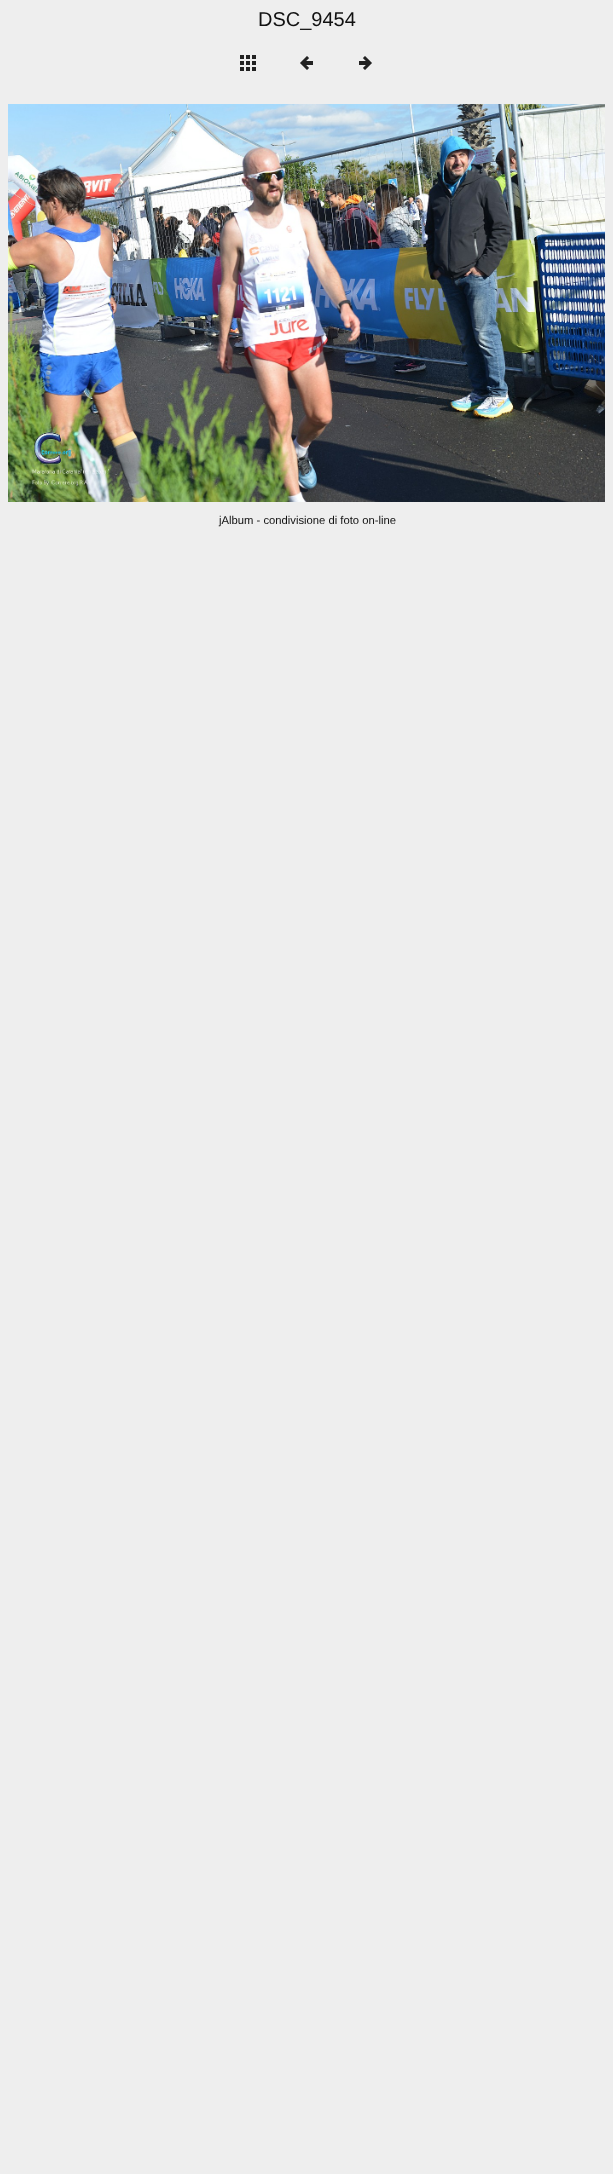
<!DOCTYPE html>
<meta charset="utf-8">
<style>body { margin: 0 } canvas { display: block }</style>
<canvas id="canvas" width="613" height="2174"></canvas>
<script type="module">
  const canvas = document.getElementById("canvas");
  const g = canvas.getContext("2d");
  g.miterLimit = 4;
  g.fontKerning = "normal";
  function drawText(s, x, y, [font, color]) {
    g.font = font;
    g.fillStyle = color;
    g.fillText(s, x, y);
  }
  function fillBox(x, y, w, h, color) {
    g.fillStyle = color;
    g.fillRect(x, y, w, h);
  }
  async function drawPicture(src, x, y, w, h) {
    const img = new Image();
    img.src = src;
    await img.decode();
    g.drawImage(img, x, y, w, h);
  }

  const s1 = ["20px Liberation Sans", "#111111"];
  const s2 = ["11.25px Liberation Sans", "#111111"];

  fillBox(0, 0, 613, 2174, "#EEEEEE");
  drawText("DSC_9454", 258, 26, s1);
  await drawPicture("pic1.png", 240, 55, 16, 16);
  await drawPicture("pic2.png", 300, 56, 13, 14);
  await drawPicture("pic3.png", 359, 56, 13, 14);
  await drawPicture("pic4.png", 8, 104, 597, 398);
  drawText("jAlbum - condivisione di foto on-line", 219, 524, s2);
</script>
